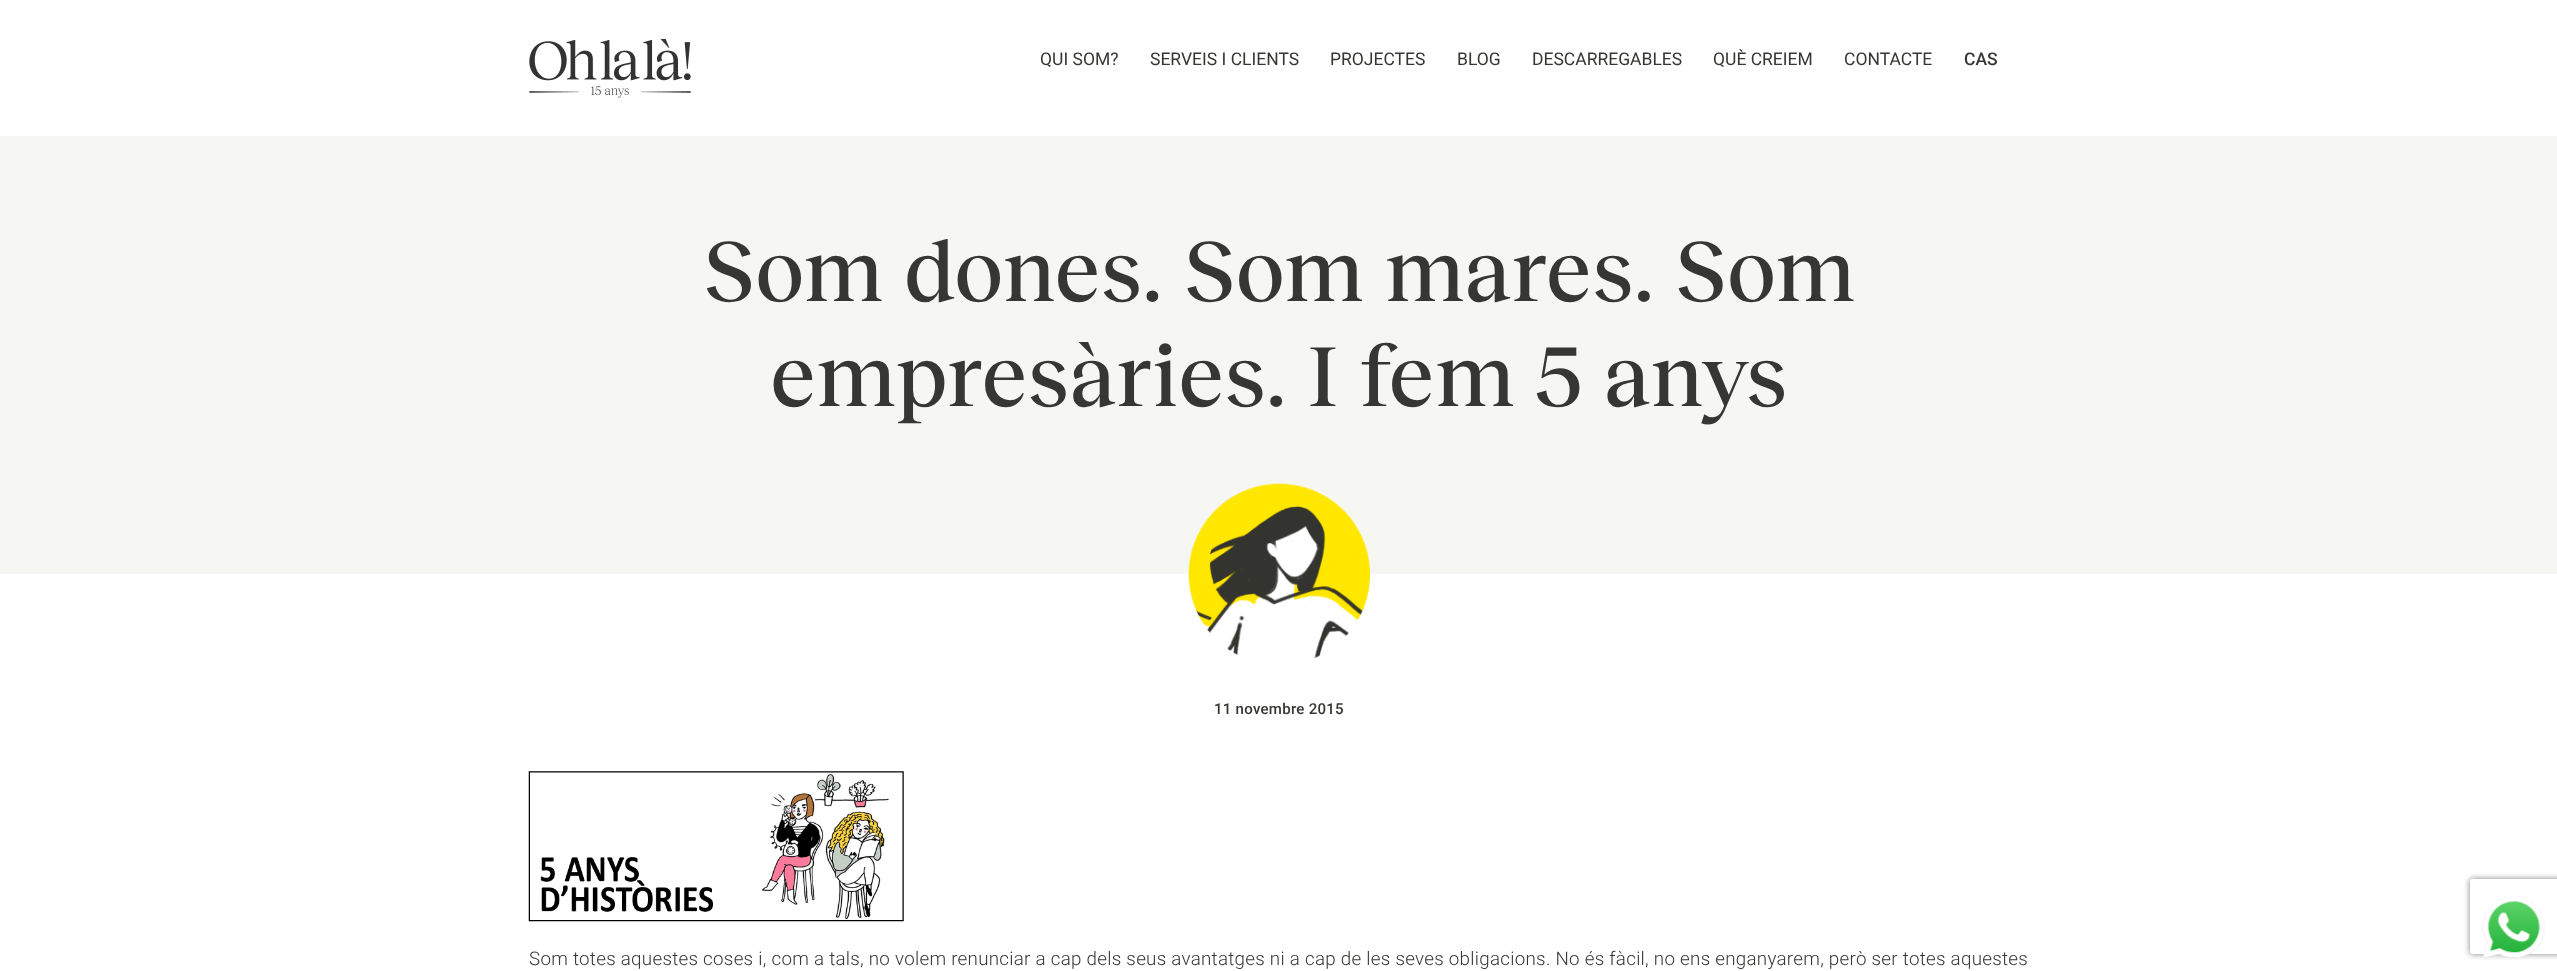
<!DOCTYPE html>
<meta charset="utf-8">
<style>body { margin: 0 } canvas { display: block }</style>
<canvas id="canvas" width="2557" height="971"></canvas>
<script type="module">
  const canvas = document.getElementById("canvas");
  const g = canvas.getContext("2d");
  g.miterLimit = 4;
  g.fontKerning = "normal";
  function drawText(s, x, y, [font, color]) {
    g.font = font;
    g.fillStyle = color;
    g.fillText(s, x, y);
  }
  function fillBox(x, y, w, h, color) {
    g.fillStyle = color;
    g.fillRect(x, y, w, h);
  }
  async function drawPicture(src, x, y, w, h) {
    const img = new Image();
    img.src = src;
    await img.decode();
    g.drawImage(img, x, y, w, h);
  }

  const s1 = ["17.5px Roboto", "#363633"];
  const s2 = ["500 17.5px Roboto", "#363633"];
  const s3 = ["500 87.5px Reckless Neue", "#363633"];
  const s4 = ["500 15px Roboto", "#363633"];
  const s5 = ["300 18.75px Roboto", "#363633"];

  fillBox(0, 0, 2557, 971, "#FFFFFF");
  await drawPicture("pic1.png", 529, 39, 162, 59);
  drawText("QUI SOM?", 1040, 65, s1);
  drawText("SERVEIS I CLIENTS", 1150, 65, s1);
  drawText("PROJECTES", 1330, 65, s1);
  drawText("BLOG", 1457, 65, s1);
  drawText("DESCARREGABLES", 1532, 65, s1);
  drawText("QUÈ CREIEM", 1713, 65, s1);
  drawText("CONTACTE", 1844, 65, s1);
  drawText("CAS", 1964, 65, s2);
  fillBox(0, 136, 2557, 438, "#F6F6F3");
  g.letterSpacing = "0.28px";
  drawText("Som dones. Som mares. Som", 703, 301, s3);
  drawText("empresàries. I fem 5 anys", 770, 406, s3);
  await drawPicture("pic2.png", 1188, 483, 182, 176);
  drawText("11 novembre 2015", 1214, 714, s4);
  await drawPicture("pic3.png", 528, 771, 376, 151);
  drawText("Som totes aquestes coses i, com a tals, no volem renunciar a cap dels seus avantatges ni a cap de les seves obligacions. No és fàcil, no ens enganyarem, però ser totes aquestes", 529, 965, s5);
  g.save();
  g.beginPath();
  g.moveTo(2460, 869);
  g.lineTo(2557, 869);
  g.lineTo(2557, 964);
  g.lineTo(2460, 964);
  g.closePath();
  g.moveTo(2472.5, 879);
  g.lineTo(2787.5, 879);
  g.bezierCurveTo(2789, 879, 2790, 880, 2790, 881.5);
  g.lineTo(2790, 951.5);
  g.bezierCurveTo(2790, 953, 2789, 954, 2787.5, 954);
  g.lineTo(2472.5, 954);
  g.bezierCurveTo(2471, 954, 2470, 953, 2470, 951.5);
  g.lineTo(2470, 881.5);
  g.bezierCurveTo(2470, 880, 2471, 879, 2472.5, 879);
  g.closePath();
  g.clip("evenodd");
  g.fillStyle = "#808080";
  g.filter = "blur(3px)";
  g.beginPath();
  g.roundRect(2470, 879, 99, 75, 2.5);
  g.fill();
  g.filter = "none";
  g.restore();
  await drawPicture("pic4.png", 2482, 896, 63, 63);
</script>
